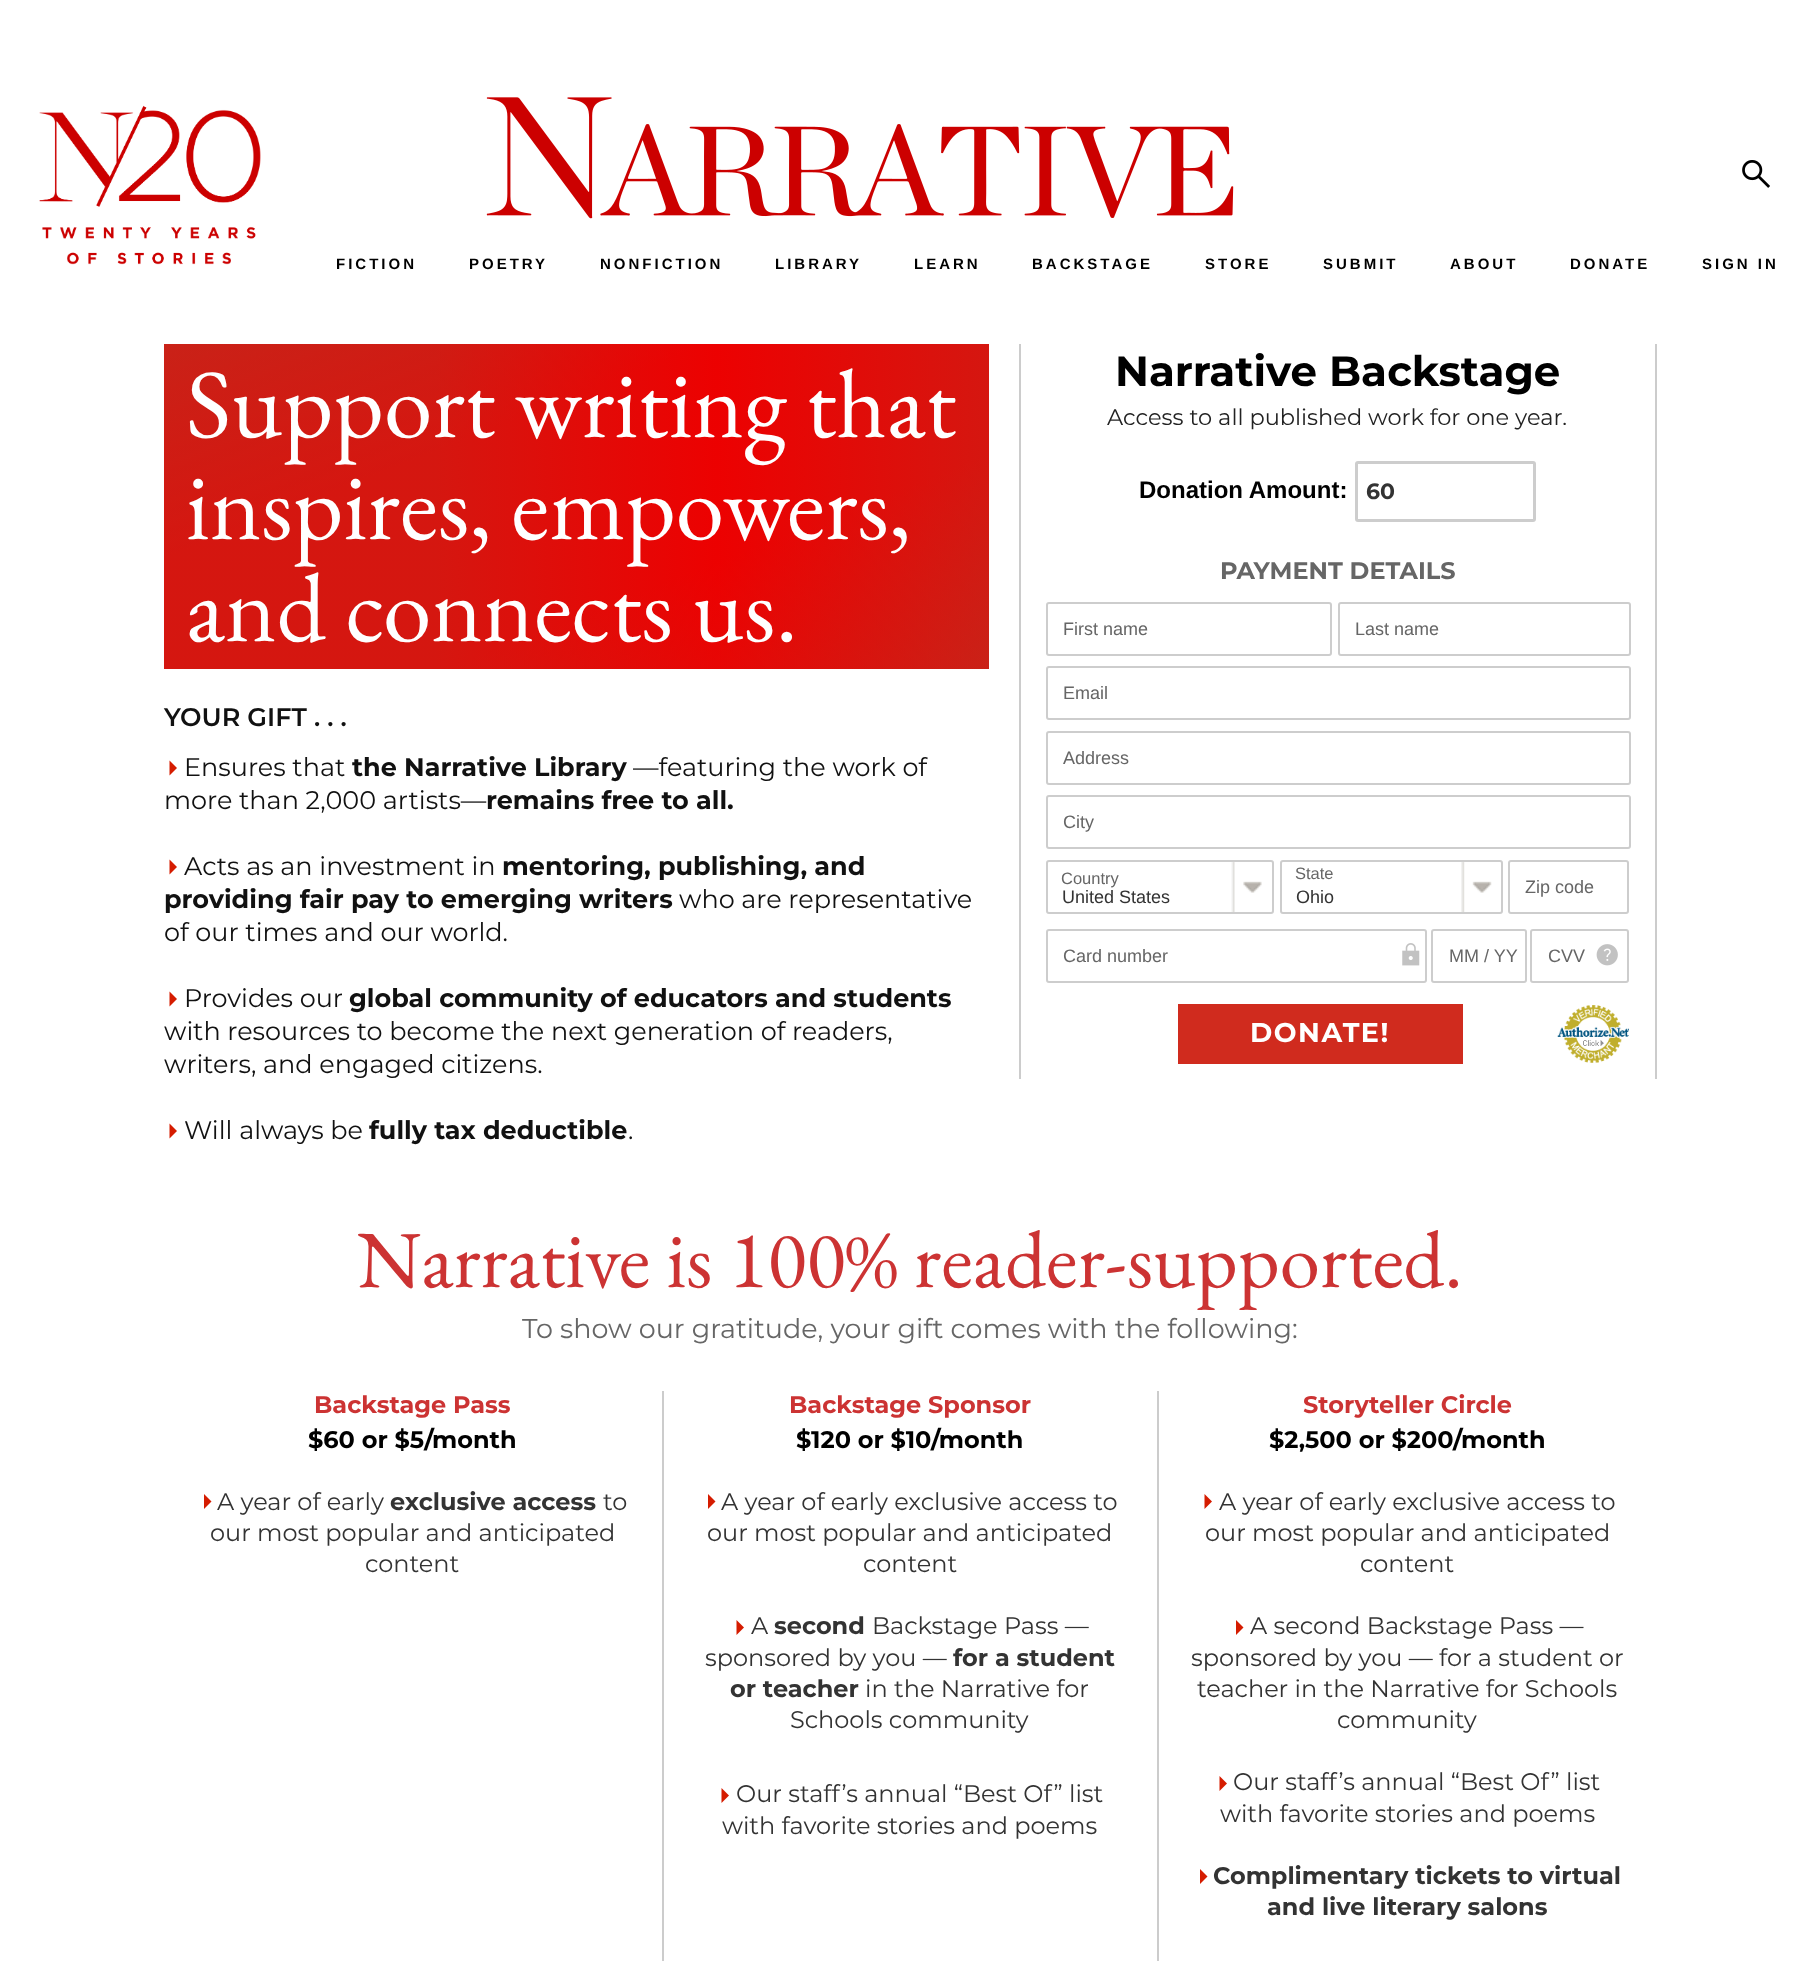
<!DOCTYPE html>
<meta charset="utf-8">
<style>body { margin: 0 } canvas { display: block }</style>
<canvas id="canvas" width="1819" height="1961"></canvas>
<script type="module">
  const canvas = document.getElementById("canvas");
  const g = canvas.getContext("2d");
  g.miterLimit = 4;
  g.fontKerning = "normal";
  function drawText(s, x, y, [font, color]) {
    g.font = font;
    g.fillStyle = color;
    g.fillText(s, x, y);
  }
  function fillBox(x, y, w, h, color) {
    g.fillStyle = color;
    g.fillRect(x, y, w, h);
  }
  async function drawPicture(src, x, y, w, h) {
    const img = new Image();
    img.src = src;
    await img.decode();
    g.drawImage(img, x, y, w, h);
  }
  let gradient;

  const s1 = ["bold 15px Liberation Sans", "#000000"];
  const s2 = ["97.5px EB Garamond", "#FFFFFF"];
  const s3 = ["600 25.5px Montserrat", "#111111"];
  const s4 = ["25.5px Montserrat", "#111111"];
  const s5 = ["bold 25.5px Montserrat", "#111111"];
  const s6 = ["bold 42px Montserrat", "#000000"];
  const s7 = ["22.5px Montserrat", "#222222"];
  const s8 = ["bold 24px Liberation Sans", "#000000"];
  const s9 = ["bold 22px Montserrat", "#333333"];
  const s10 = ["bold 24px Montserrat", "#666666"];
  const s11 = ["18px Liberation Sans", "#666666"];
  const s12 = ["16.5px Liberation Sans", "#666666"];
  const s13 = ["18px Liberation Sans", "#333333"];
  const s14 = ["bold 27px Montserrat", "#FFFFFF"];
  const s15 = ["81px EB Garamond", "#CC3333"];
  const s16 = ["27px Montserrat", "#666666"];
  const s17 = ["bold 24px Montserrat", "#CC3333"];
  const s18 = ["bold 24px Montserrat", "#000000"];
  const s19 = ["24px Montserrat", "#333333"];
  const s20 = ["bold 24px Montserrat", "#333333"];

  fillBox(0, 0, 1819, 1961, "#FFFFFF");
  await drawPicture("pic1.png", 39, 105, 222, 160);
  await drawPicture("pic2.png", 486, 97, 748, 122);
  await drawPicture("pic3.png", 1742, 160, 28, 28);
  g.letterSpacing = "3px";
  drawText("FICTION", 336, 269, s1);
  drawText("POETRY", 469, 269, s1);
  drawText("NONFICTION", 600, 269, s1);
  drawText("LIBRARY", 775, 269, s1);
  drawText("LEARN", 914, 269, s1);
  drawText("BACKSTAGE", 1032, 269, s1);
  drawText("STORE", 1205, 269, s1);
  drawText("SUBMIT", 1323, 269, s1);
  drawText("ABOUT", 1450, 269, s1);
  drawText("DONATE", 1570, 269, s1);
  drawText("SIGN IN", 1702, 269, s1);
  gradient = g.createLinearGradient(465, 225, 687, 788);
  gradient.addColorStop(0, "#C31811");
  gradient.addColorStop(0.33, "#DA0202");
  gradient.addColorStop(0.67, "#DA0202");
  gradient.addColorStop(1, "#C31811");
  g.fillStyle = gradient;
  g.fillRect(164, 344, 825, 325);
  gradient = g.createLinearGradient(164, 506, 989, 506);
  gradient.addColorStop(0, "rgba(208, 43, 30, 0.5)");
  gradient.addColorStop(0.33, "rgba(208, 43, 30, 0.5)");
  gradient.addColorStop(0.67, "rgba(255, 0, 0, 0.5)");
  gradient.addColorStop(1, "rgba(208, 43, 30, 0.5)");
  g.fillStyle = gradient;
  g.fillRect(164, 344, 825, 325);
  g.letterSpacing = "0px";
  drawText("Support writing that", 186, 437, s2);
  drawText("inspires, empowers,", 186, 539, s2);
  drawText("and connects us.", 186, 641, s2);
  drawText("YOUR GIFT . . .", 164, 726, s3);
  g.fillStyle = "#D51C00";
  g.beginPath();
  g.moveTo(169.5, 775.5);
  g.lineTo(169.5, 760.5);
  g.lineTo(177, 768);
  g.closePath();
  g.fill();
  drawText("Ensures that", 184, 776, s4);
  drawText("the Narrative Library", 352, 776, s5);
  drawText("—featuring the work of", 633, 776, s4);
  drawText("more than 2,000 artists—", 164, 809, s4);
  drawText("remains free to all.", 486, 809, s5);
  g.fillStyle = "#D51C00";
  g.beginPath();
  g.moveTo(169.5, 874.5);
  g.lineTo(169.5, 859.5);
  g.lineTo(177, 867);
  g.closePath();
  g.fill();
  drawText("Acts as an investment in", 184, 875, s4);
  drawText("mentoring, publishing, and", 502, 875, s5);
  drawText("providing fair pay to emerging writers", 164, 908, s5);
  drawText("who are representative", 679, 908, s4);
  drawText("of our times and our world.", 164, 941, s4);
  g.fillStyle = "#D51C00";
  g.beginPath();
  g.moveTo(169.5, 1006.5);
  g.lineTo(169.5, 991.5);
  g.lineTo(177, 999);
  g.closePath();
  g.fill();
  drawText("Provides our", 184, 1007, s4);
  drawText("global community of educators and students", 349, 1007, s5);
  drawText("with resources to become the next generation of readers,", 164, 1040, s4);
  drawText("writers, and engaged citizens.", 164, 1073, s4);
  g.fillStyle = "#D51C00";
  g.beginPath();
  g.moveTo(169.5, 1138.5);
  g.lineTo(169.5, 1123.5);
  g.lineTo(177, 1131);
  g.closePath();
  g.fill();
  drawText("Will always be", 184, 1139, s4);
  drawText("fully tax deductible", 369, 1139, s5);
  drawText(".", 628, 1139, s4);
  fillBox(1655, 344, 2, 735, "#CCCCCC");
  fillBox(1019, 344, 2, 735, "#CCCCCC");
  drawText("Narrative Backstage", 1115, 386, s6);
  drawText("Access to all published work for one year.", 1107, 425, s7);
  drawText("Donation Amount:", 1139, 498, s8);
  g.beginPath();
  g.roundRect(1356.5, 462.5, 178, 58, 1.5);
  g.strokeStyle = "#CDCDCD";
  g.lineWidth = 3;
  g.stroke();
  drawText("60", 1366, 499, s9);
  drawText("PAYMENT DETAILS", 1220, 579, s10);
  g.beginPath();
  g.roundRect(1047, 603, 284, 52, 2);
  g.lineWidth = 2;
  g.stroke();
  drawText("First name", 1063, 635, s11);
  g.beginPath();
  g.roundRect(1339, 603, 291, 52, 2);
  g.stroke();
  drawText("Last name", 1355, 635, s11);
  g.beginPath();
  g.roundRect(1047, 667, 583, 52, 2);
  g.stroke();
  drawText("Email", 1063, 699, s11);
  g.beginPath();
  g.roundRect(1047, 732, 583, 52, 2);
  g.stroke();
  drawText("Address", 1063, 764, s11);
  g.beginPath();
  g.roundRect(1047, 796, 583, 52, 2);
  g.stroke();
  drawText("City", 1063, 828, s11);
  await drawPicture("pic4.png", 1231, 862, 31, 50);
  g.beginPath();
  g.roundRect(1047, 861, 226, 52, 2);
  g.stroke();
  drawText("Country", 1061, 884, s12);
  drawText("United States", 1062, 903, s13);
  await drawPicture("pic5.png", 1461, 862, 31, 50);
  g.beginPath();
  g.roundRect(1281, 861, 221, 52, 2);
  g.stroke();
  drawText("State", 1295, 879, s12);
  drawText("Ohio", 1296, 903, s13);
  g.beginPath();
  g.roundRect(1509, 861, 119, 52, 2);
  g.stroke();
  drawText("Zip code", 1525, 893, s11);
  g.beginPath();
  g.roundRect(1047, 930, 379, 52, 2);
  g.stroke();
  drawText("Card number", 1063, 962, s11);
  await drawPicture("pic6.png", 1402, 943, 18, 23);
  g.beginPath();
  g.roundRect(1432, 930, 94, 52, 2);
  g.stroke();
  drawText("MM / YY", 1449, 962, s11);
  g.beginPath();
  g.roundRect(1531, 930, 97, 52, 2);
  g.stroke();
  drawText("CVV", 1548, 962, s11);
  await drawPicture("pic7.png", 1596, 944, 22, 22);
  fillBox(1178, 1004, 285, 60, "#D02B1E");
  g.letterSpacing = "1.5px";
  drawText("DONATE!", 1250, 1042, s14);
  await drawPicture("pic8.png", 1557, 1005, 72, 58);
  g.letterSpacing = "0px";
  drawText("Narrative is 100% reader-supported.", 357, 1287, s15);
  drawText("To show our gratitude, your gift comes with the following:", 522, 1338, s16);
  drawText("Backstage Pass", 314, 1413, s17);
  drawText("$60 or $5/month", 308, 1448, s18);
  g.fillStyle = "#D51C00";
  g.beginPath();
  g.moveTo(204, 1509);
  g.lineTo(204, 1494);
  g.lineTo(211.5, 1501.5);
  g.closePath();
  g.fill();
  drawText("A year of early", 217, 1510, s19);
  drawText("exclusive access", 390, 1510, s20);
  drawText("to", 603, 1510, s19);
  drawText("our most popular and anticipated", 210, 1541, s19);
  drawText("content", 365, 1572, s19);
  fillBox(1157, 1391, 2, 570, "#CCCCCC");
  fillBox(662, 1391, 2, 570, "#CCCCCC");
  drawText("Backstage Sponsor", 789, 1413, s17);
  drawText("$120 or $10/month", 796, 1448, s18);
  g.fillStyle = "#D51C00";
  g.beginPath();
  g.moveTo(708, 1509);
  g.lineTo(708, 1494);
  g.lineTo(715.5, 1501.5);
  g.closePath();
  g.fill();
  drawText("A year of early exclusive access to", 721, 1510, s19);
  drawText("our most popular and anticipated", 707, 1541, s19);
  drawText("content", 863, 1572, s19);
  g.fillStyle = "#D51C00";
  g.beginPath();
  g.moveTo(736.5, 1635);
  g.lineTo(736.5, 1620);
  g.lineTo(744, 1627.5);
  g.closePath();
  g.fill();
  drawText("A", 751, 1634, s19);
  drawText("second", 774, 1634, s20);
  drawText("Backstage Pass —", 872, 1634, s19);
  drawText("sponsored by you —", 705, 1666, s19);
  drawText("for a student", 953, 1666, s20);
  drawText("or teacher", 730, 1697, s20);
  drawText("in the Narrative for", 865, 1697, s19);
  drawText("Schools community", 790, 1728, s19);
  g.fillStyle = "#D51C00";
  g.beginPath();
  g.moveTo(721.5, 1803);
  g.lineTo(721.5, 1788);
  g.lineTo(729, 1795.5);
  g.closePath();
  g.fill();
  drawText("Our staff’s annual “Best Of” list", 736, 1802, s19);
  drawText("with favorite stories and poems", 722, 1834, s19);
  drawText("Storyteller Circle", 1303, 1413, s17);
  drawText("$2,500 or $200/month", 1269, 1448, s18);
  g.fillStyle = "#D51C00";
  g.beginPath();
  g.moveTo(1204.5, 1509);
  g.lineTo(1204.5, 1494);
  g.lineTo(1212, 1501.5);
  g.closePath();
  g.fill();
  drawText("A year of early exclusive access to", 1219, 1510, s19);
  drawText("our most popular and anticipated", 1205, 1541, s19);
  drawText("content", 1360, 1572, s19);
  g.fillStyle = "#D51C00";
  g.beginPath();
  g.moveTo(1236, 1635);
  g.lineTo(1236, 1620);
  g.lineTo(1243.5, 1627.5);
  g.closePath();
  g.fill();
  drawText("A second Backstage Pass —", 1250, 1634, s19);
  drawText("sponsored by you — for a student or", 1191, 1666, s19);
  drawText("teacher in the Narrative for Schools", 1197, 1697, s19);
  drawText("community", 1337, 1728, s19);
  g.fillStyle = "#D51C00";
  g.beginPath();
  g.moveTo(1219.5, 1791);
  g.lineTo(1219.5, 1776);
  g.lineTo(1227, 1783.5);
  g.closePath();
  g.fill();
  drawText("Our staff’s annual “Best Of” list", 1233, 1790, s19);
  drawText("with favorite stories and poems", 1220, 1822, s19);
  g.fillStyle = "#D51C00";
  g.beginPath();
  g.moveTo(1200, 1884);
  g.lineTo(1200, 1869);
  g.lineTo(1207.5, 1876.5);
  g.closePath();
  g.fill();
  drawText("Complimentary tickets to virtual", 1213, 1884, s20);
  drawText("and live literary salons", 1267, 1915, s20);
</script>
